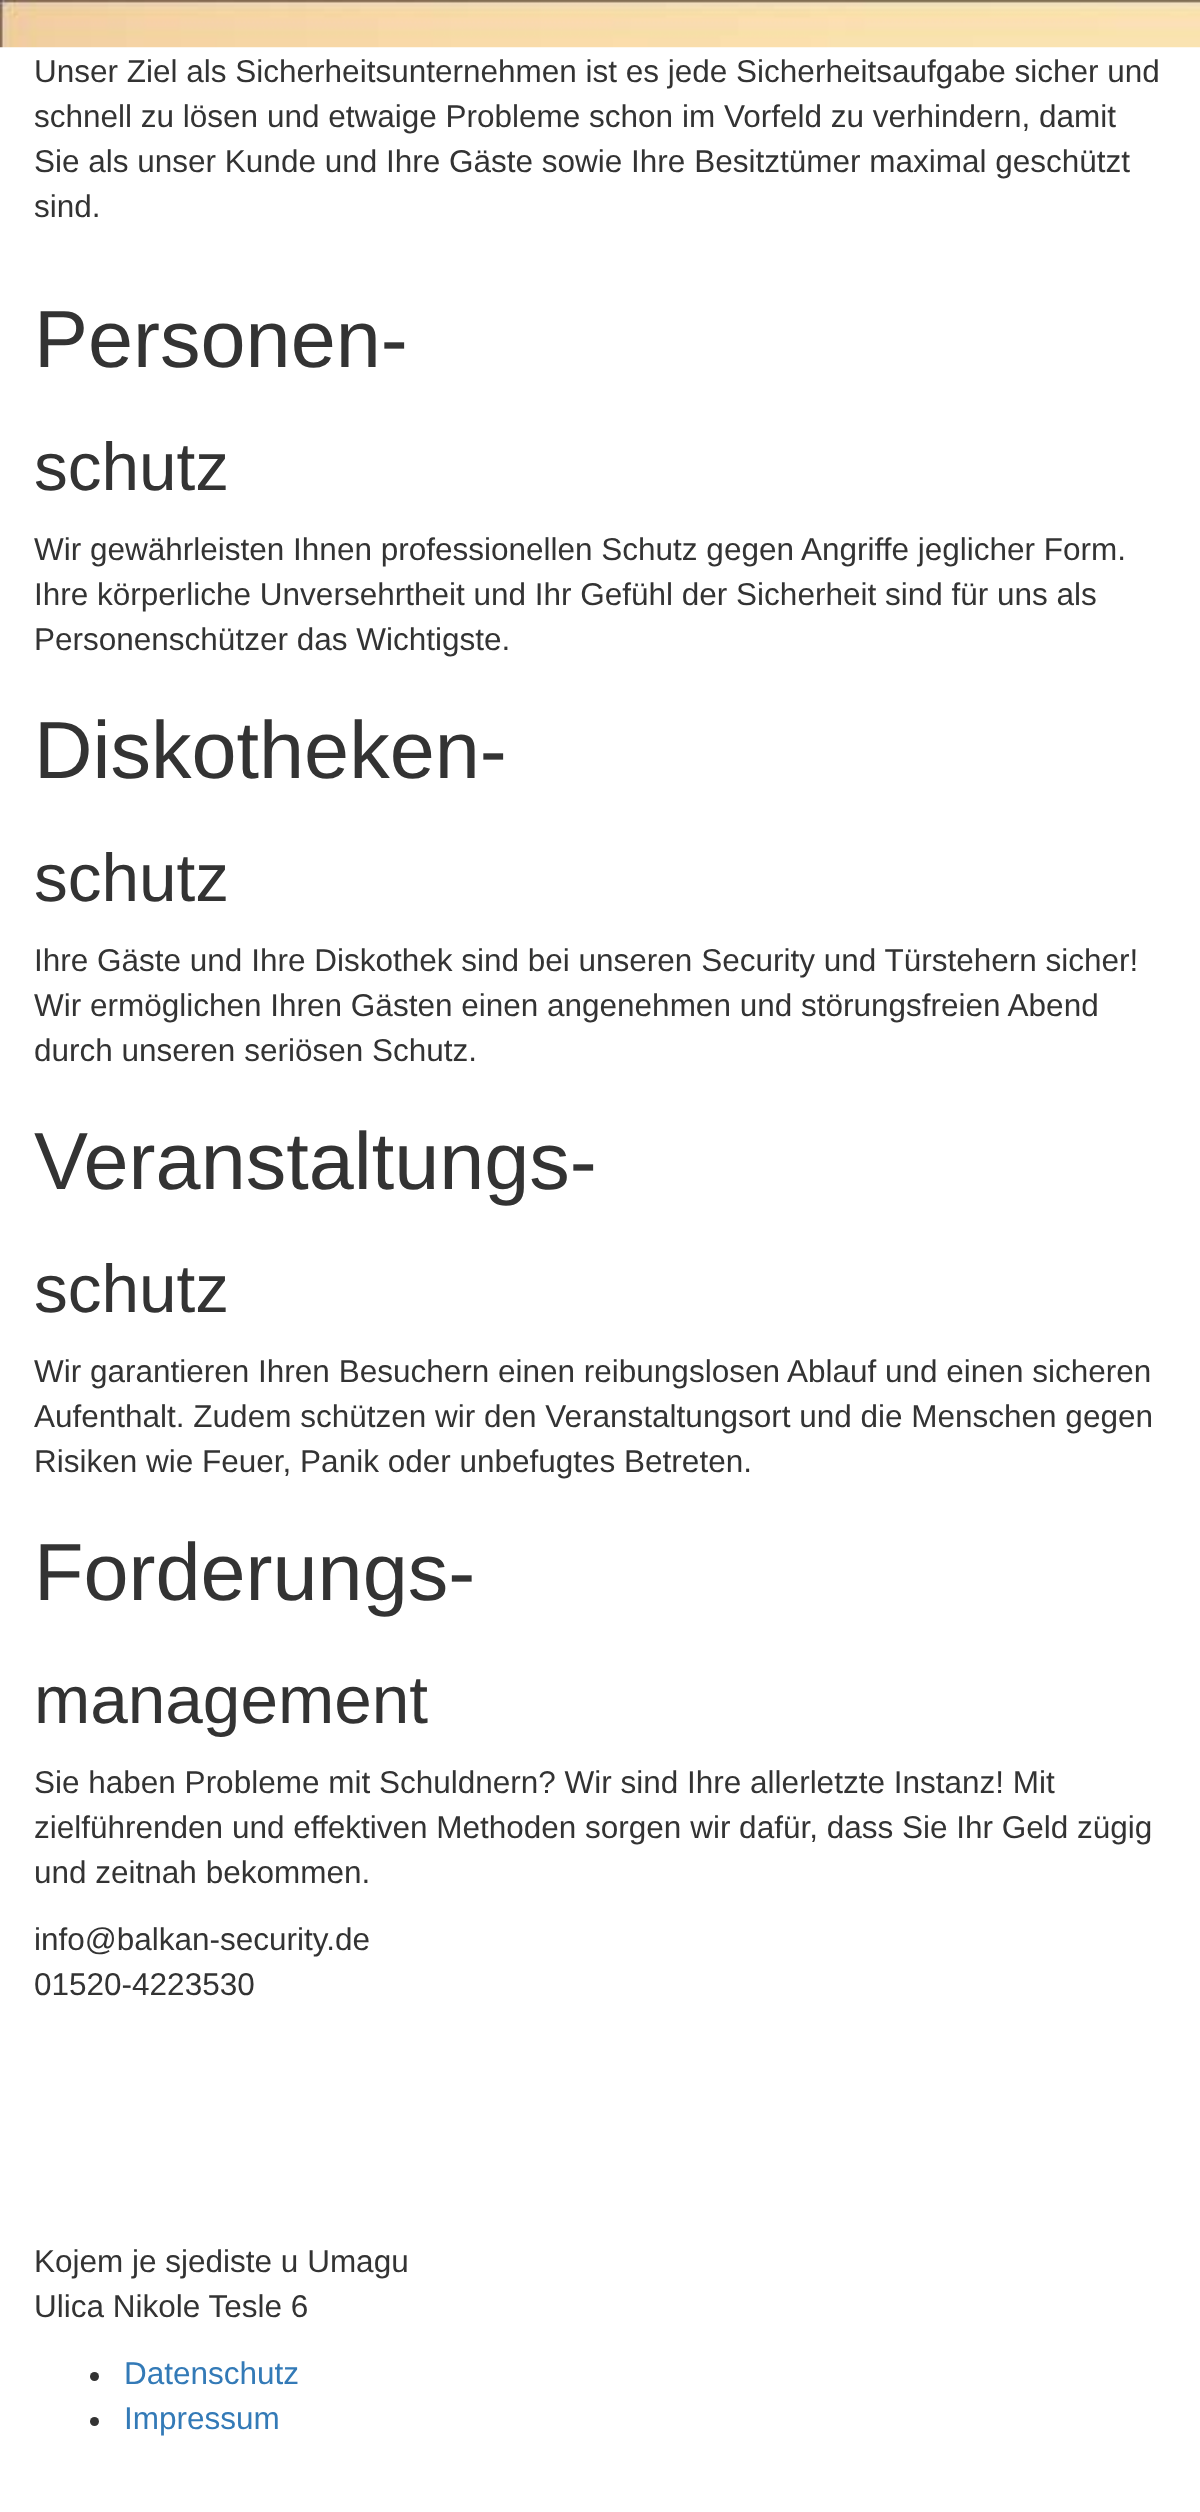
<!DOCTYPE html>
<meta charset="utf-8">
<style>body { margin: 0 } canvas { display: block }</style>
<canvas id="canvas" width="1200" height="2512"></canvas>
<script type="module">
  const canvas = document.getElementById("canvas");
  const g = canvas.getContext("2d");
  g.miterLimit = 4;
  g.fontKerning = "normal";
  function drawText(s, x, y, [font, color]) {
    g.font = font;
    g.fillStyle = color;
    g.fillText(s, x, y);
  }
  function fillBox(x, y, w, h, color) {
    g.fillStyle = color;
    g.fillRect(x, y, w, h);
  }
  async function drawPicture(src, x, y, w, h) {
    const img = new Image();
    img.src = src;
    await img.decode();
    g.drawImage(img, x, y, w, h);
  }

  const s1 = ["31.5px Liberation Sans", "#333333"];
  const s2 = ["81px Liberation Sans", "#333333"];
  const s3 = ["67.5px Liberation Sans", "#333333"];
  const s4 = ["31.5px Liberation Sans", "#337AB7"];

  fillBox(0, 0, 1200, 2512, "#FFFFFF");
  await drawPicture("pic1.png", 0, 0, 1200, 48);
  drawText("Unser Ziel als Sicherheitsunternehmen ist es jede Sicherheitsaufgabe sicher und", 34, 82, s1);
  drawText("schnell zu lösen und etwaige Probleme schon im Vorfeld zu verhindern, damit", 34, 127, s1);
  drawText("Sie als unser Kunde und Ihre Gäste sowie Ihre Besitztümer maximal geschützt", 34, 172, s1);
  drawText("sind.", 34, 217, s1);
  drawText("Personen-", 34, 367, s2);
  drawText("schutz", 34, 490, s3);
  drawText("Wir gewährleisten Ihnen professionellen Schutz gegen Angriffe jeglicher Form.", 34, 560, s1);
  drawText("Ihre körperliche Unversehrtheit und Ihr Gefühl der Sicherheit sind für uns als", 34, 605, s1);
  drawText("Personenschützer das Wichtigste.", 34, 650, s1);
  drawText("Diskotheken-", 34, 778, s2);
  drawText("schutz", 34, 901, s3);
  drawText("Ihre Gäste und Ihre Diskothek sind bei unseren Security und Türstehern sicher!", 34, 971, s1);
  drawText("Wir ermöglichen Ihren Gästen einen angenehmen und störungsfreien Abend", 34, 1016, s1);
  drawText("durch unseren seriösen Schutz.", 34, 1061, s1);
  drawText("Veranstaltungs-", 34, 1189, s2);
  drawText("schutz", 34, 1312, s3);
  drawText("Wir garantieren Ihren Besuchern einen reibungslosen Ablauf und einen sicheren", 34, 1382, s1);
  drawText("Aufenthalt. Zudem schützen wir den Veranstaltungsort und die Menschen gegen", 34, 1427, s1);
  drawText("Risiken wie Feuer, Panik oder unbefugtes Betreten.", 34, 1472, s1);
  drawText("Forderungs-", 34, 1600, s2);
  drawText("management", 34, 1723, s3);
  drawText("Sie haben Probleme mit Schuldnern? Wir sind Ihre allerletzte Instanz! Mit", 34, 1793, s1);
  drawText("zielführenden und effektiven Methoden sorgen wir dafür, dass Sie Ihr Geld zügig", 34, 1838, s1);
  drawText("und zeitnah bekommen.", 34, 1883, s1);
  drawText("info@balkan-security.de", 34, 1950, s1);
  drawText("01520-4223530", 34, 1995, s1);
  drawText("Kojem je sjediste u Umagu", 34, 2272, s1);
  drawText("Ulica Nikole Tesle 6", 34, 2317, s1);
  g.beginPath();
  g.arc(94.5, 2376.5, 4.5, 0, Math.PI * 2);
  g.fill();
  drawText("Datenschutz", 124, 2384, s4);
  g.fillStyle = "#333333";
  g.beginPath();
  g.arc(94.5, 2421.5, 4.5, 0, Math.PI * 2);
  g.fill();
  drawText("Impressum", 124, 2429, s4);
</script>
